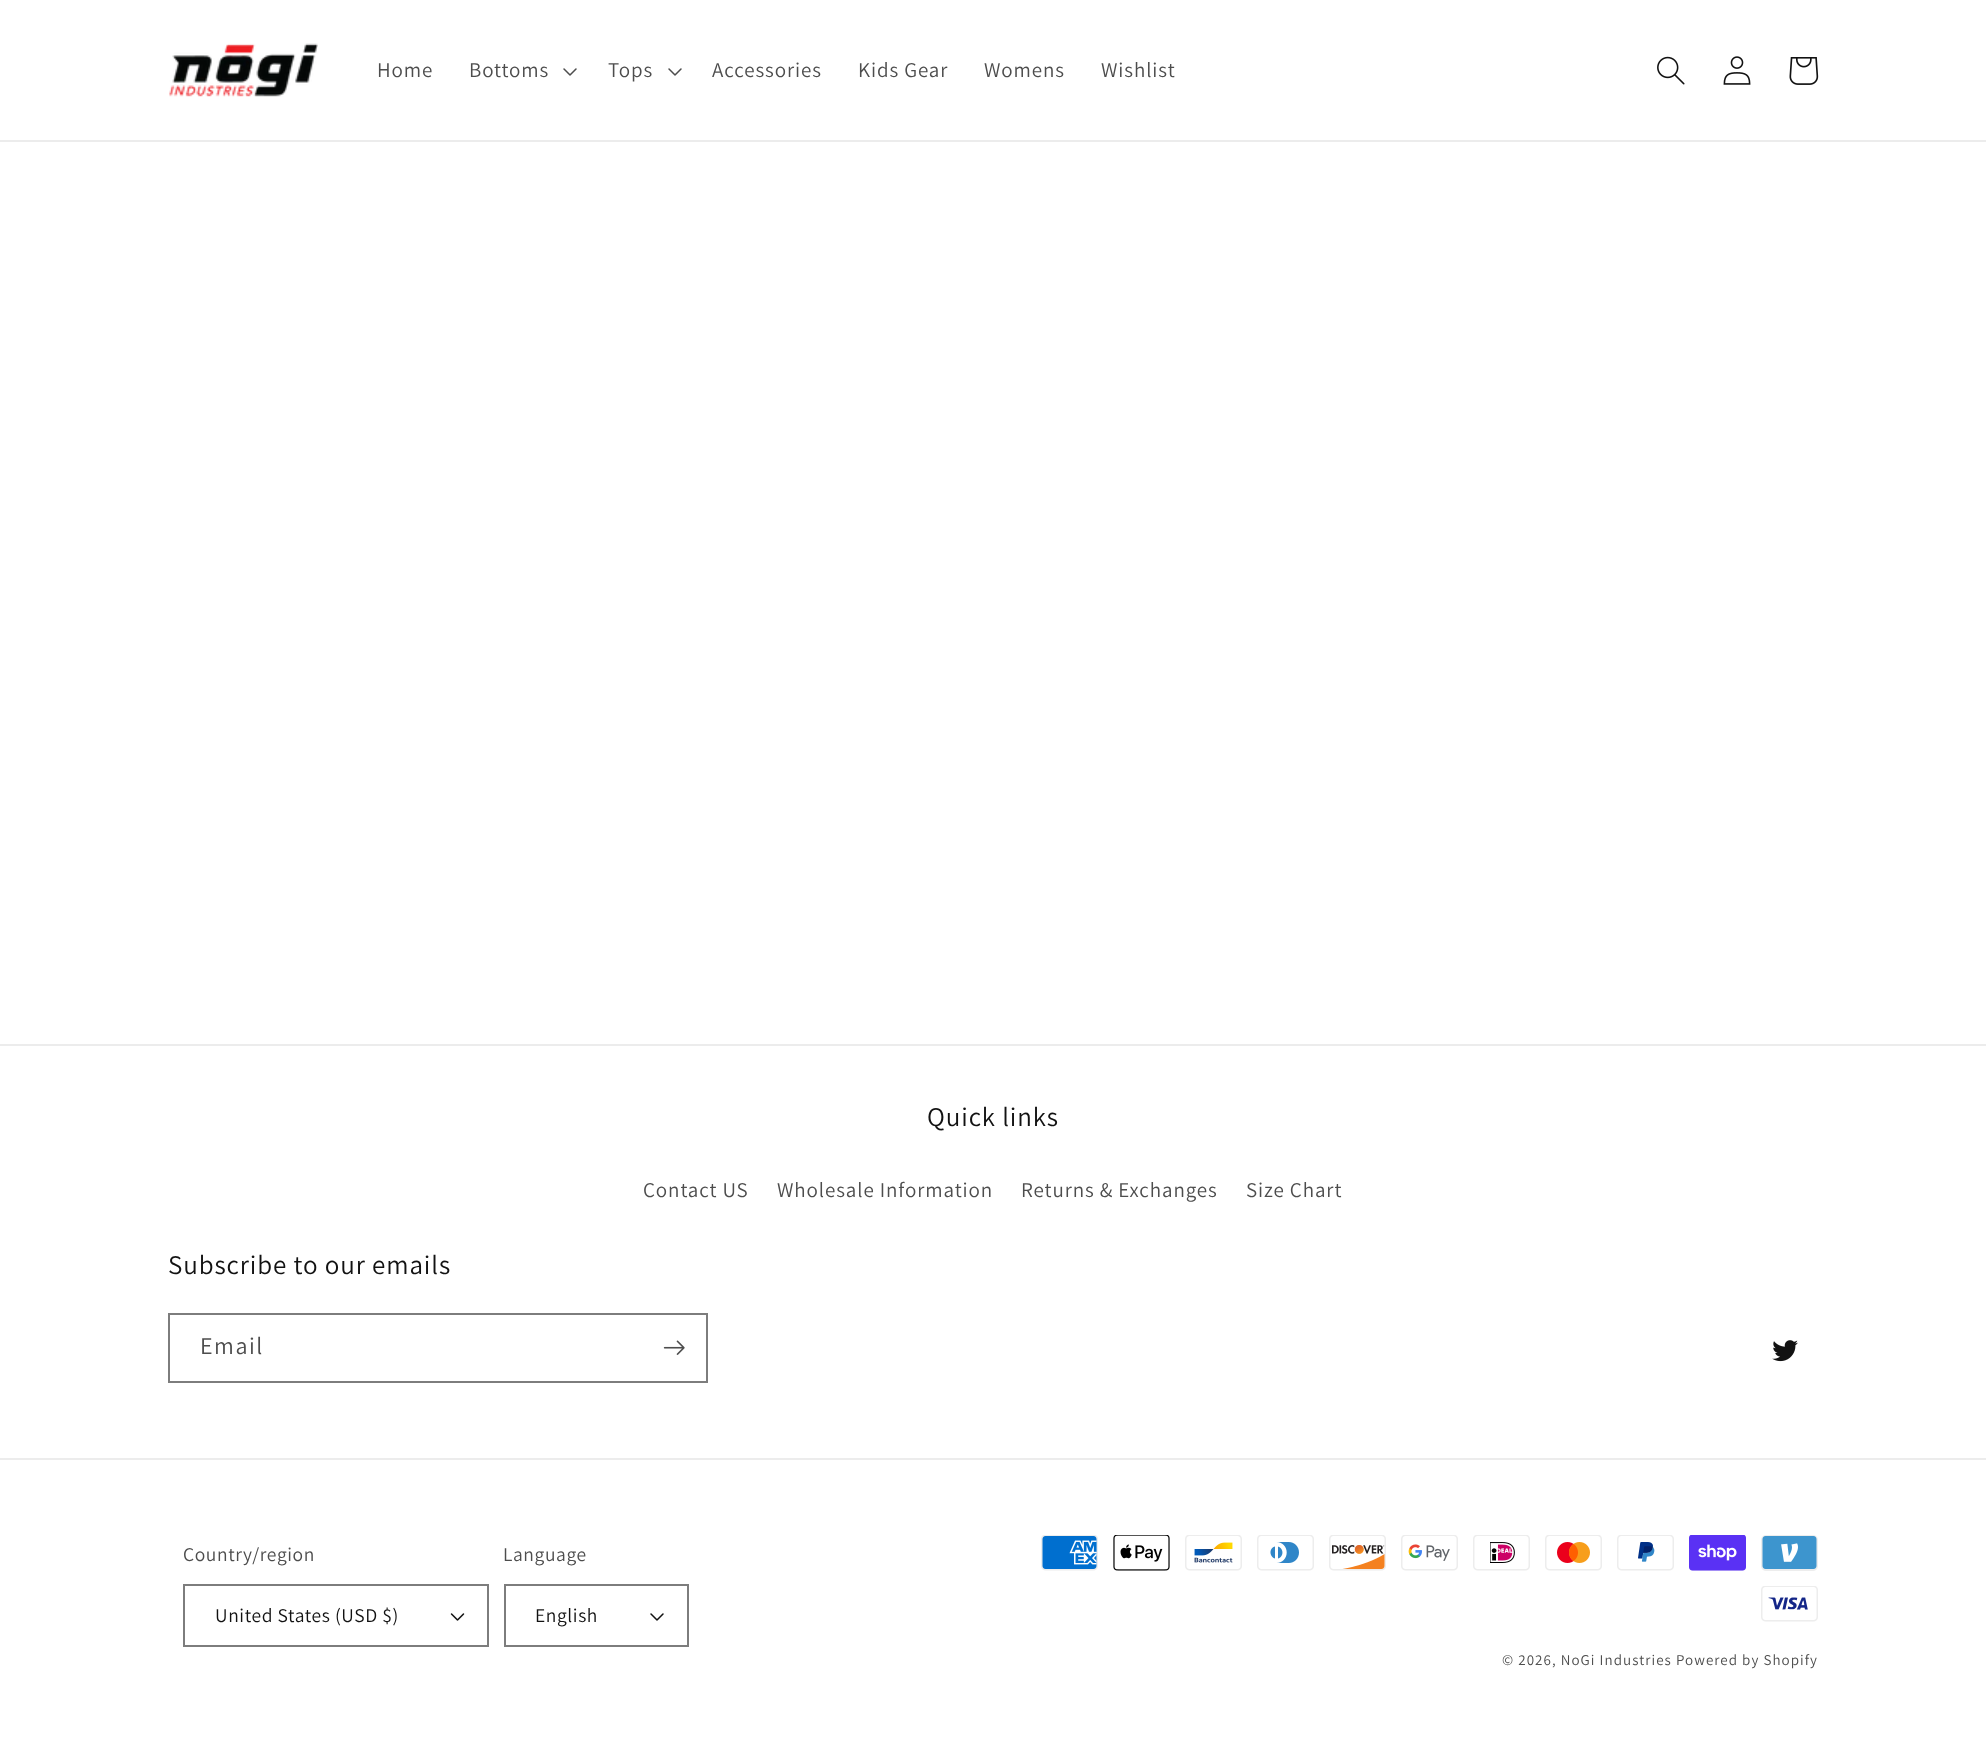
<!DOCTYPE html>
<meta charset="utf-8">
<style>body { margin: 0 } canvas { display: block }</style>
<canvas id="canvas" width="1986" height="1737"></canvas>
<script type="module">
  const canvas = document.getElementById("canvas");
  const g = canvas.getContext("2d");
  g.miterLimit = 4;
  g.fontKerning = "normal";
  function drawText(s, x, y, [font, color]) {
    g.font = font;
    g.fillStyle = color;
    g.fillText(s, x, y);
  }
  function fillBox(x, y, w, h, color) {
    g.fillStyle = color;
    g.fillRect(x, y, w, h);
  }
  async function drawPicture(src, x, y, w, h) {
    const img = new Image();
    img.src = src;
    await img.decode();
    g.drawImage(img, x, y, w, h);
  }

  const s1 = ["21px Assistant", "#4D4D4D"];
  const s2 = ["27px Assistant", "#121212"];
  const s3 = ["24px Assistant", "#4D4D4D"];
  const s4 = ["19.5px Assistant", "#4D4D4D"];
  const s5 = ["19.5px Assistant", "#121212"];
  const s6 = ["15px Assistant", "#4D4D4D"];

  fillBox(0, 0, 1986, 1737, "#FFFFFF");
  fillBox(0, 140, 1986, 2, "#ECECEC");
  await drawPicture("pic1.png", 169, 43, 149, 54);
  g.letterSpacing = "0.9px";
  drawText("Home", 377, 77, s1);
  drawText("Bottoms", 469, 77, s1);
  await drawPicture("pic2.png", 563, 68, 14, 8);
  drawText("Tops", 608, 77, s1);
  await drawPicture("pic2.png", 668, 68, 14, 8);
  drawText("Accessories", 712, 77, s1);
  drawText("Kids Gear", 858, 77, s1);
  drawText("Womens", 984, 77, s1);
  drawText("Wishlist", 1101, 77, s1);
  await drawPicture("pic3.png", 1657, 56, 28, 29);
  await drawPicture("pic4.png", 1723, 56, 28, 29);
  await drawPicture("pic5.png", 1789, 57, 30, 28);
  fillBox(0, 1044, 1986, 2, "#ECECEC");
  drawText("Quick links", 927, 1126, s2);
  drawText("Contact US", 643, 1197, s1);
  drawText("Wholesale Information", 777, 1197, s1);
  drawText("Returns & Exchanges", 1021, 1197, s1);
  drawText("Size Chart", 1246, 1197, s1);
  drawText("Subscribe to our emails", 168, 1274, s2);
  g.strokeStyle = "#7D7D7D";
  g.lineWidth = 2;
  g.strokeRect(169, 1314, 538, 68);
  g.letterSpacing = "1.5px";
  drawText("Email", 200, 1354, s3);
  await drawPicture("pic6.png", 663, 1340, 22, 15);
  await drawPicture("pic7.png", 1772, 1340, 26, 22);
  fillBox(0, 1458, 1986, 2, "#ECECEC");
  g.letterSpacing = "0.6px";
  drawText("Country/region", 183, 1561, s4);
  await drawPicture("pic8.png", 450, 1613, 15, 8);
  g.strokeRect(184, 1585, 304, 61);
  drawText("United States (USD $)", 215, 1622, s5);
  drawText("Language", 503, 1561, s4);
  await drawPicture("pic9.png", 650, 1613, 14, 8);
  g.strokeRect(505, 1585, 183, 61);
  drawText("English", 535, 1622, s5);
  await drawPicture("pic10.png", 1041, 1535, 57, 36);
  await drawPicture("pic11.png", 1113, 1535, 57, 36);
  await drawPicture("pic12.png", 1185, 1535, 57, 36);
  await drawPicture("pic13.png", 1257, 1535, 57, 36);
  await drawPicture("pic14.png", 1329, 1535, 57, 36);
  await drawPicture("pic15.png", 1401, 1535, 57, 36);
  await drawPicture("pic16.png", 1473, 1535, 57, 36);
  await drawPicture("pic17.png", 1545, 1535, 57, 36);
  await drawPicture("pic18.png", 1617, 1535, 57, 36);
  await drawPicture("pic19.png", 1689, 1535, 57, 36);
  await drawPicture("pic20.png", 1761, 1535, 57, 36);
  await drawPicture("pic21.png", 1761, 1586, 57, 36);
  g.letterSpacing = "1.05px";
  drawText("© 2026, NoGi Industries", 1502, 1665, s6);
  drawText("Powered by Shopify", 1676, 1665, s6);
</script>
